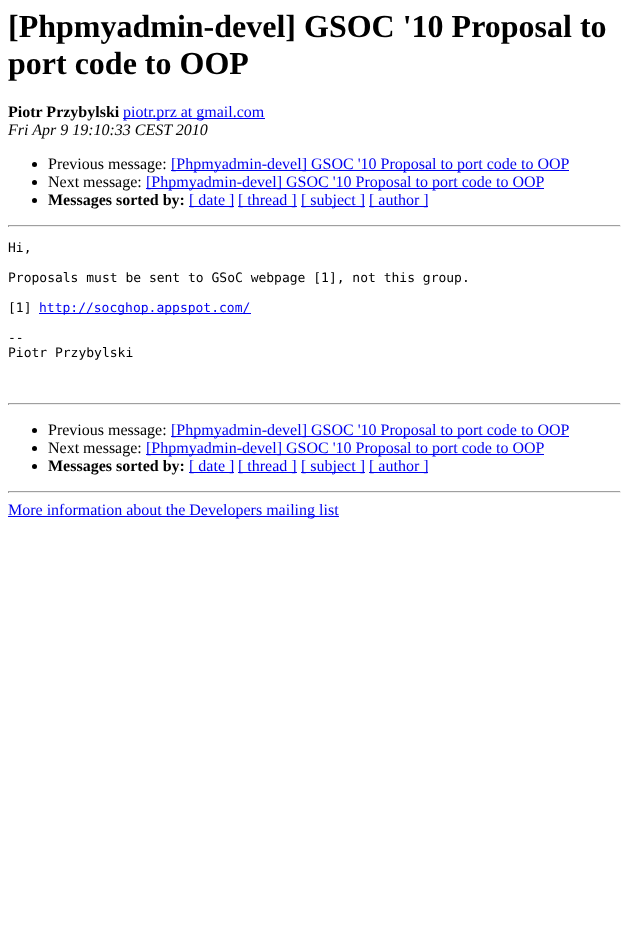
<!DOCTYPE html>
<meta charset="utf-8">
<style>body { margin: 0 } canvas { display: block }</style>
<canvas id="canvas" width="629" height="930"></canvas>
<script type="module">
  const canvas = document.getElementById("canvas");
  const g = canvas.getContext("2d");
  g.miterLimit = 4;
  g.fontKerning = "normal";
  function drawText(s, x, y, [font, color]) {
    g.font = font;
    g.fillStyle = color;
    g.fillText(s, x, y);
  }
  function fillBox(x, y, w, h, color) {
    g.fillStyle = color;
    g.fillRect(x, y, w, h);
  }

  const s1 = ["bold 32px Liberation Serif", "#000000"];
  const s2 = ["bold 16px Liberation Serif", "#000000"];
  const s3 = ["16px Liberation Serif", "#0000EE"];
  const s4 = ["italic 16px Liberation Serif", "#000000"];
  const s5 = ["16px Liberation Serif", "#000000"];
  const s6 = ["13px DejaVu Sans Mono", "#000000"];
  const s7 = ["13px DejaVu Sans Mono", "#0000EE"];

  fillBox(0, 0, 629, 930, "#FFFFFF");
  drawText("[Phpmyadmin-devel] GSOC '10 Proposal to", 8, 37, s1);
  drawText("port code to OOP", 8, 74, s1);
  drawText("Piotr Przybylski", 8, 117, s2);
  fillBox(123, 118, 142, 1, "#0000EE");
  drawText("piotr.prz at gmail.com", 123, 117, s3);
  drawText("Fri Apr 9 19:10:33 CEST 2010", 8, 135, s4);
  g.beginPath();
  g.arc(34.5, 164.5, 2.5, 0, Math.PI * 2);
  g.fill();
  drawText("Previous message:", 48, 169, s5);
  fillBox(171, 170, 398, 1, "#0000EE");
  drawText("[Phpmyadmin-devel] GSOC '10 Proposal to port code to OOP", 171, 169, s3);
  g.fillStyle = "#000000";
  g.beginPath();
  g.arc(34.5, 182.5, 2.5, 0, Math.PI * 2);
  g.fill();
  drawText("Next message:", 48, 187, s5);
  fillBox(146, 188, 398, 1, "#0000EE");
  drawText("[Phpmyadmin-devel] GSOC '10 Proposal to port code to OOP", 146, 187, s3);
  g.fillStyle = "#000000";
  g.beginPath();
  g.arc(34.5, 200.5, 2.5, 0, Math.PI * 2);
  g.fill();
  drawText("Messages sorted by:", 48, 205, s2);
  fillBox(189, 206, 45, 1, "#0000EE");
  drawText("[ date ]", 189, 205, s3);
  fillBox(238, 206, 59, 1, "#0000EE");
  drawText("[ thread ]", 238, 205, s3);
  fillBox(301, 206, 64, 1, "#0000EE");
  drawText("[ subject ]", 301, 205, s3);
  fillBox(369, 206, 59, 1, "#0000EE");
  drawText("[ author ]", 369, 205, s3);
  fillBox(8, 225, 613, 1, "#9F9F9F");
  fillBox(620, 225, 1, 2, "#EEEEEE");
  fillBox(8, 226, 613, 1, "#EEEEEE");
  fillBox(8, 225, 1, 2, "#9F9F9F");
  drawText("Hi,", 8, 252, s6);
  drawText("Proposals must be sent to GSoC webpage [1], not this group.", 8, 282, s6);
  drawText("[1]", 8, 312, s6);
  fillBox(39, 313, 212, 1, "#0000EE");
  drawText("http://socghop.appspot.com/", 39, 312, s7);
  drawText("--", 8, 342, s6);
  drawText("Piotr Przybylski", 8, 357, s6);
  fillBox(8, 403, 613, 1, "#9F9F9F");
  fillBox(620, 403, 1, 2, "#EEEEEE");
  fillBox(8, 404, 613, 1, "#EEEEEE");
  fillBox(8, 403, 1, 2, "#9F9F9F");
  g.fillStyle = "#000000";
  g.beginPath();
  g.arc(34.5, 430.5, 2.5, 0, Math.PI * 2);
  g.fill();
  drawText("Previous message:", 48, 435, s5);
  fillBox(171, 436, 398, 1, "#0000EE");
  drawText("[Phpmyadmin-devel] GSOC '10 Proposal to port code to OOP", 171, 435, s3);
  g.fillStyle = "#000000";
  g.beginPath();
  g.arc(34.5, 448.5, 2.5, 0, Math.PI * 2);
  g.fill();
  drawText("Next message:", 48, 453, s5);
  fillBox(146, 454, 398, 1, "#0000EE");
  drawText("[Phpmyadmin-devel] GSOC '10 Proposal to port code to OOP", 146, 453, s3);
  g.fillStyle = "#000000";
  g.beginPath();
  g.arc(34.5, 466.5, 2.5, 0, Math.PI * 2);
  g.fill();
  drawText("Messages sorted by:", 48, 471, s2);
  fillBox(189, 472, 45, 1, "#0000EE");
  drawText("[ date ]", 189, 471, s3);
  fillBox(238, 472, 59, 1, "#0000EE");
  drawText("[ thread ]", 238, 471, s3);
  fillBox(301, 472, 64, 1, "#0000EE");
  drawText("[ subject ]", 301, 471, s3);
  fillBox(369, 472, 59, 1, "#0000EE");
  drawText("[ author ]", 369, 471, s3);
  fillBox(8, 491, 613, 1, "#9F9F9F");
  fillBox(620, 491, 1, 2, "#EEEEEE");
  fillBox(8, 492, 613, 1, "#EEEEEE");
  fillBox(8, 491, 1, 2, "#9F9F9F");
  fillBox(8, 516, 331, 1, "#0000EE");
  drawText("More information about the Developers mailing list", 8, 515, s3);
</script>
